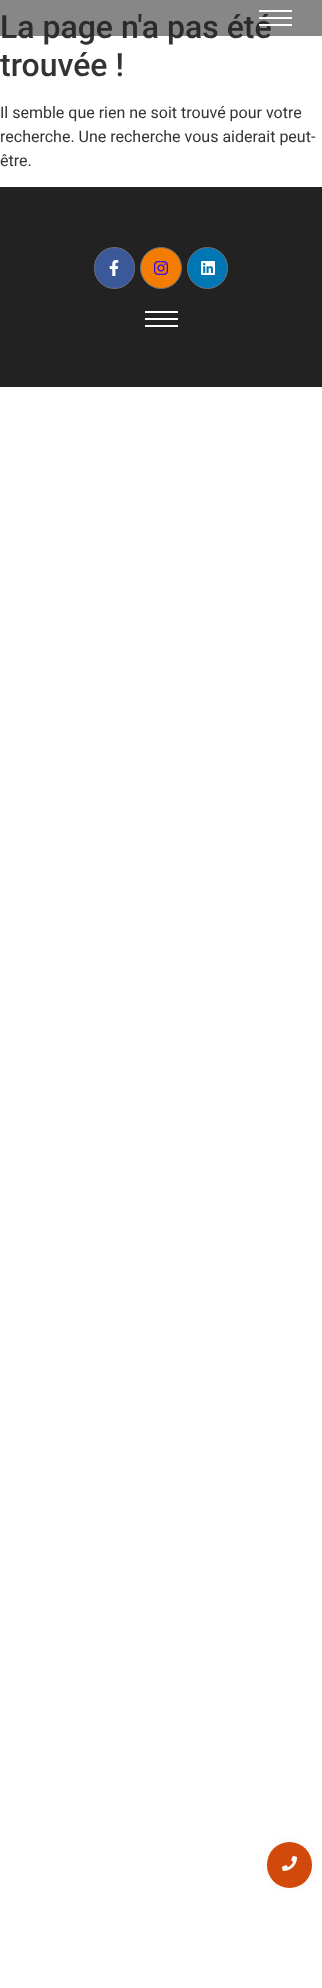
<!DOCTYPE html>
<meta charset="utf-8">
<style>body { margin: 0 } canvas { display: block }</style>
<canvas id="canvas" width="322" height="1988"></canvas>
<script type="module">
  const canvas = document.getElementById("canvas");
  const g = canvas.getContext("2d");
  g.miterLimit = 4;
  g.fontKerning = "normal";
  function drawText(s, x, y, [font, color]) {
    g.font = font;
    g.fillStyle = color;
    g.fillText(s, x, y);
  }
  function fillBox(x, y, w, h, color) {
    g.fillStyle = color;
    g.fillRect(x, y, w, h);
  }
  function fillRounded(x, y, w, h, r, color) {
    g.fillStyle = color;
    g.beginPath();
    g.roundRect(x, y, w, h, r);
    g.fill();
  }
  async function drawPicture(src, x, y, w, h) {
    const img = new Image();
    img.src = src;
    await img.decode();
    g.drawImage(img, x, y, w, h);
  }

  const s1 = ["500 32px Roboto", "#333333"];
  const s2 = ["16px Roboto", "#333333"];

  fillBox(0, 0, 322, 1988, "#FFFFFF");
  drawText("La page n'a pas été", 0, 38, s1);
  fillBox(0, 0, 322, 36, "rgba(36, 36, 36, 0.55)");
  fillBox(259, 10, 33, 2, "#FFFFFF");
  fillBox(259, 17, 33, 2, "#FFFFFF");
  fillBox(259, 24, 33, 2, "#FFFFFF");
  drawText("trouvée !", 0, 76, s1);
  drawText("Il semble que rien ne soit trouvé pour votre", 0, 118, s2);
  drawText("recherche. Une recherche vous aiderait peut-", 0, 142, s2);
  drawText("être.", 0, 166, s2);
  fillBox(0, 187, 322, 200, "#232222");
  g.fillStyle = "#3B5998";
  g.beginPath();
  g.roundRect(94.5, 247.5, 40, 41, 20);
  g.fill();
  g.strokeStyle = "#69727D";
  g.stroke();
  await drawPicture("pic1.png", 109, 260, 10, 16);
  g.fillStyle = "#F47D01";
  g.beginPath();
  g.arc(161, 268, 20.5, 0, Math.PI * 2);
  g.fill();
  g.stroke();
  await drawPicture("pic2.png", 154, 261, 14, 14);
  g.fillStyle = "#0077B5";
  g.beginPath();
  g.roundRect(187.5, 247.5, 40, 41, 20);
  g.fill();
  g.stroke();
  await drawPicture("pic3.png", 201, 261, 14, 14);
  fillBox(145, 311, 33, 2, "#FFFFFF");
  fillBox(145, 318, 33, 2, "#FFFFFF");
  fillBox(145, 325, 33, 2, "#FFFFFF");
  g.fillStyle = "rgba(60, 60, 60, 0.06)";
  g.filter = "blur(5px)";
  g.beginPath();
  g.roundRect(267, 1842, 45, 46, 22.5);
  g.fill();
  g.filter = "none";
  fillRounded(267, 1842, 45, 46, 22.5, "#D24A0B");
  await drawPicture("pic4.png", 282, 1856, 15, 15);
</script>
